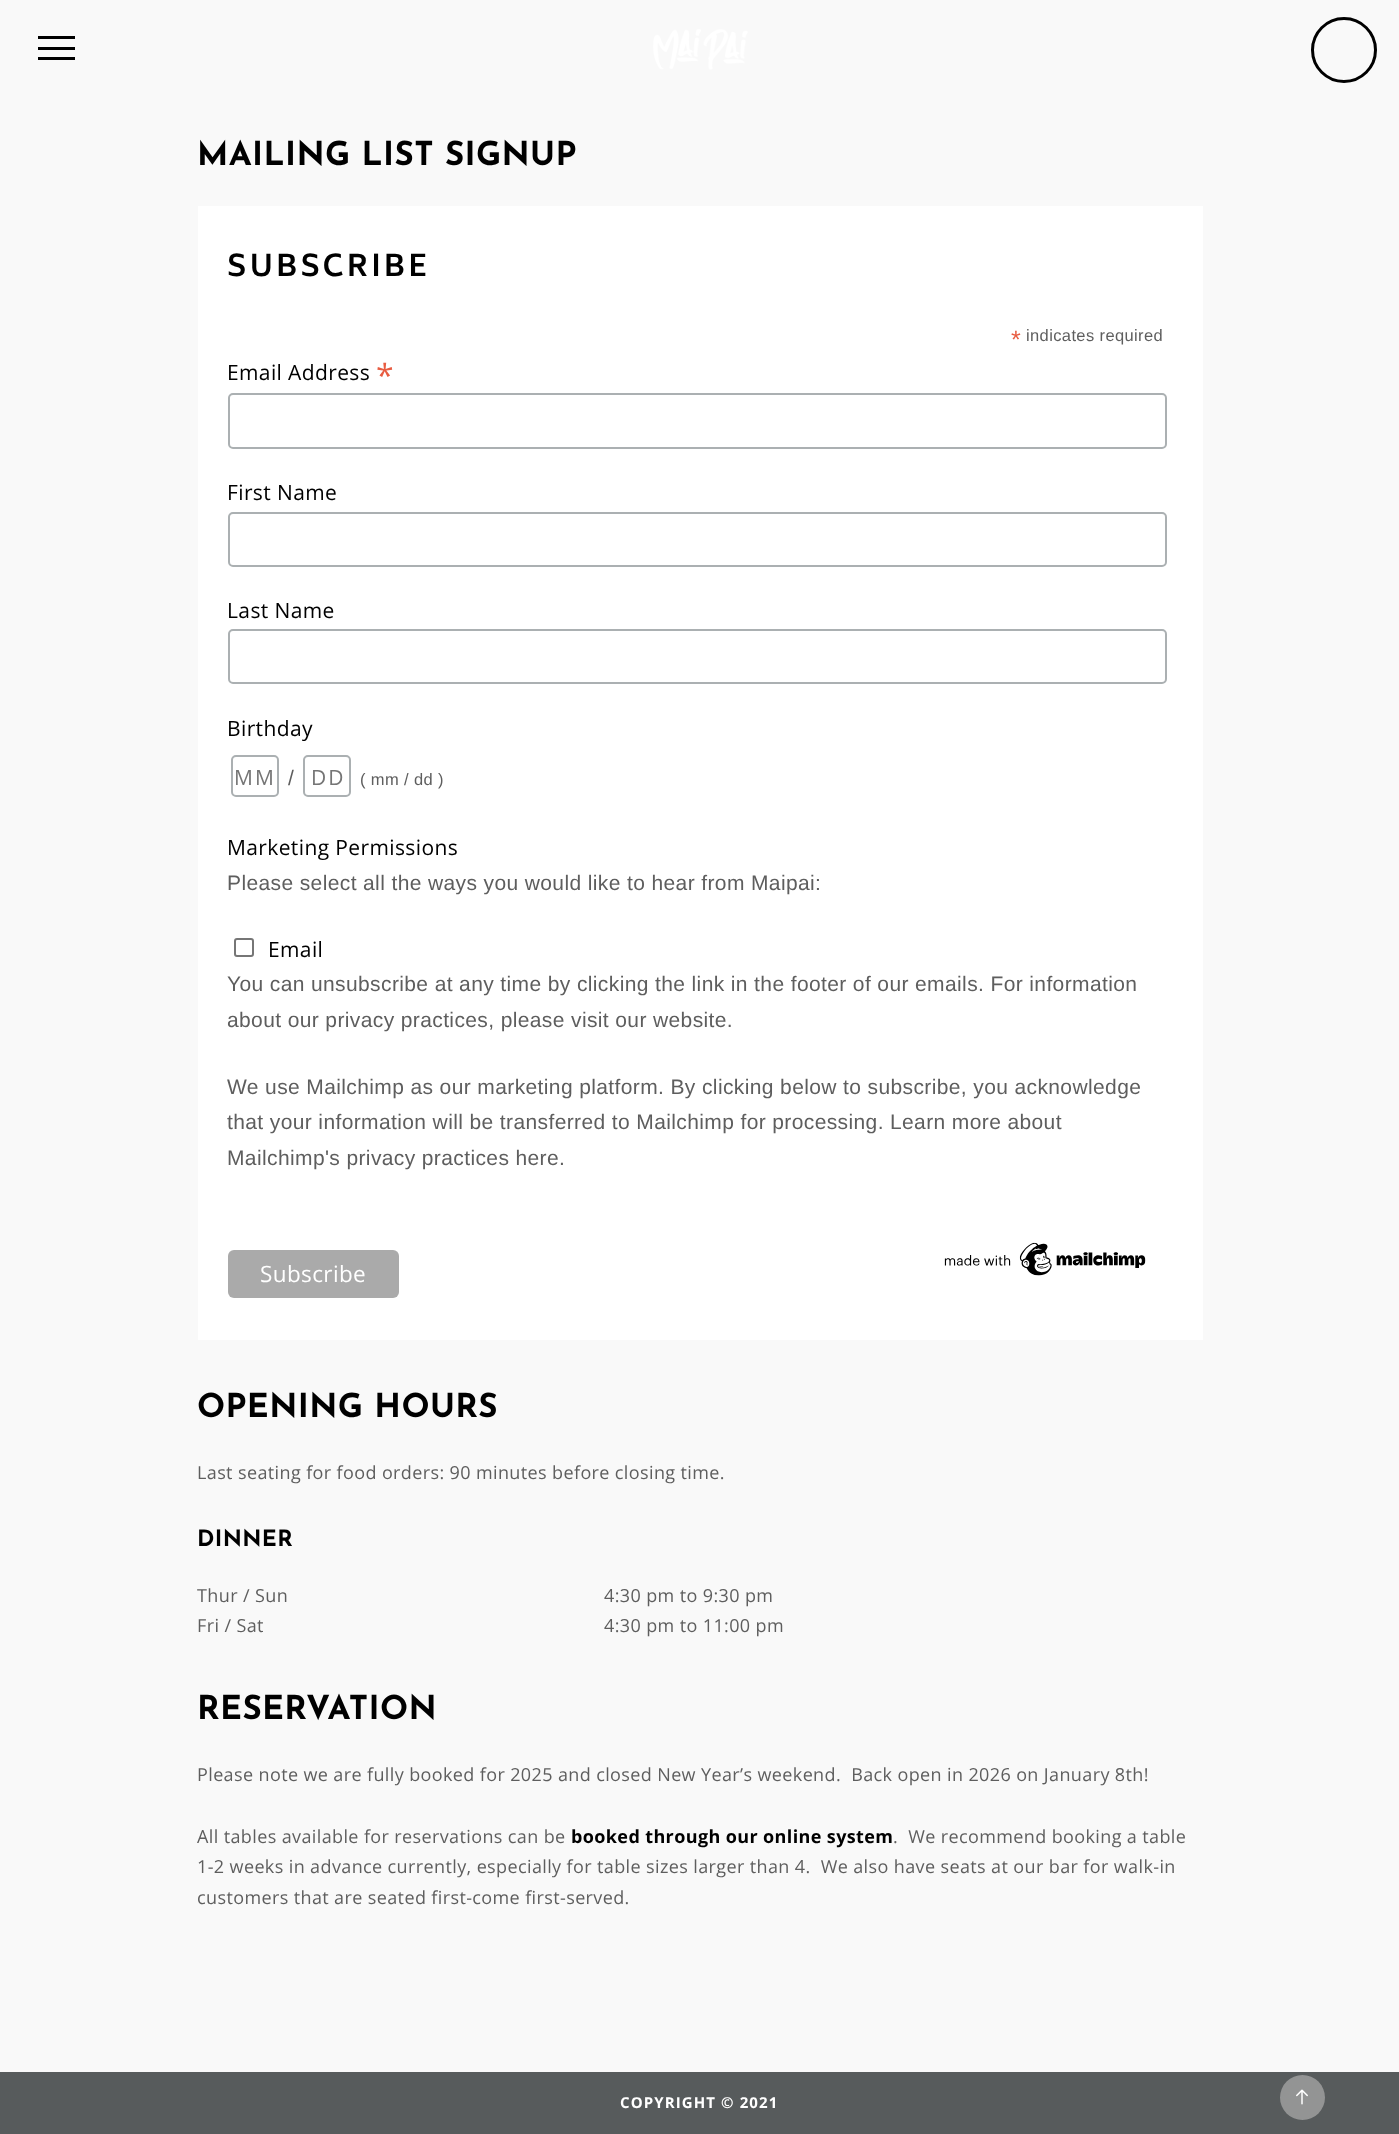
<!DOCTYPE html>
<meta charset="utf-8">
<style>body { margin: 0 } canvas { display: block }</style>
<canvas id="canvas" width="1399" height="2134"></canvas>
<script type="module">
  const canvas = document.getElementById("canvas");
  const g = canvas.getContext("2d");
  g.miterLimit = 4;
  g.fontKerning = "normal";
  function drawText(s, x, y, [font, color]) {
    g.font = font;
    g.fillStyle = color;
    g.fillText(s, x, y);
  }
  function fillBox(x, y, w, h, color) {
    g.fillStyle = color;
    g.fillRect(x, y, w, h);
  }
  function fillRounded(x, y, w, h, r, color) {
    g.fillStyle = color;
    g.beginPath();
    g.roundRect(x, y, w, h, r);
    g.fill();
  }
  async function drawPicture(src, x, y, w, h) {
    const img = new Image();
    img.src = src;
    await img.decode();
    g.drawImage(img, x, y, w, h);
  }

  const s1 = ["bold 33px Josefin Sans", "#000000"];
  const s2 = ["bold 29.5px Biryani", "#000000"];
  const s3 = ["25px Liberation Sans", "#E85C41"];
  const s4 = ["16.5px Liberation Sans", "#5E5E5E"];
  const s5 = ["21px Open Sans", "#000000"];
  const s6 = ["32px Open Sans", "#E85C41"];
  const s7 = ["21px Open Sans", "#757575"];
  const s8 = ["21px Liberation Sans", "#5E5E5E"];
  const s9 = ["22.5px Open Sans", "#FFFFFF"];
  const s10 = ["18px Open Sans", "#5E5E5E"];
  const s11 = ["bold 22.5px Josefin Sans", "#000000"];
  const s12 = ["bold 18px Open Sans", "#000000"];
  const s13 = ["bold 15px Open Sans", "#FFFFFF"];

  fillBox(0, 0, 1399, 2134, "#F9F9F9");
  fillBox(38, 47, 37, 3, "#000000");
  fillBox(38, 36, 37, 3, "#000000");
  fillBox(38, 57, 37, 3, "#000000");
  await drawPicture("pic1.png", 653, 29, 95, 41);
  g.beginPath();
  g.arc(1344, 50, 31.5, 0, Math.PI * 2);
  g.strokeStyle = "#000000";
  g.lineWidth = 3;
  g.stroke();
  g.letterSpacing = "0.38px";
  drawText("MAILING LIST SIGNUP", 197, 165, s1);
  fillBox(198, 206, 1005, 1134, "#FFFFFF");
  g.letterSpacing = "3px";
  drawText("SUBSCRIBE", 227, 276, s2);
  g.letterSpacing = "0.38px";
  drawText("*", 1011, 348, s3);
  drawText("indicates required", 1026, 341, s4);
  drawText("Email Address", 227, 380, s5);
  drawText("*", 376, 387, s6);
  g.beginPath();
  g.roundRect(229, 394, 937, 54, 4);
  g.strokeStyle = "#ABB0B2";
  g.lineWidth = 2;
  g.stroke();
  drawText("First Name", 227, 500, s5);
  g.beginPath();
  g.roundRect(229, 513, 937, 53, 4);
  g.stroke();
  drawText("Last Name", 227, 618, s5);
  g.beginPath();
  g.roundRect(229, 630, 937, 53, 4);
  g.stroke();
  drawText("Birthday", 227, 736, s5);
  g.beginPath();
  g.roundRect(232, 756, 46, 40, 4);
  g.stroke();
  g.letterSpacing = "2px";
  drawText("MM", 234, 785, s7);
  g.letterSpacing = "0.38px";
  drawText("/", 288, 785, s8);
  g.beginPath();
  g.roundRect(304, 756, 46, 40, 4);
  g.stroke();
  g.letterSpacing = "2px";
  drawText("DD", 311, 785, s7);
  g.letterSpacing = "0.38px";
  drawText("( mm / dd )", 360, 785, s4);
  drawText("Marketing Permissions", 227, 855, s5);
  drawText("Please select all the ways you would like to hear from Maipai:", 227, 890, s8);
  g.beginPath();
  g.roundRect(235, 939, 18, 17, 2);
  g.strokeStyle = "#767676";
  g.stroke();
  drawText("Email", 268, 957, s5);
  drawText("You can unsubscribe at any time by clicking the link in the footer of our emails. For information", 227, 991, s8);
  drawText("about our privacy practices, please visit our website.", 227, 1027, s8);
  drawText("We use Mailchimp as our marketing platform. By clicking below to subscribe, you acknowledge", 227, 1094, s8);
  drawText("that your information will be transferred to Mailchimp for processing.", 227, 1129, s8);
  drawText("Learn more about", 890, 1129, s8);
  drawText("Mailchimp's privacy practices here.", 227, 1165, s8);
  fillRounded(228, 1250, 171, 48, 6, "#AAAAAA");
  drawText("Subscribe", 260, 1282, s9);
  await drawPicture("pic2.png", 944, 1242, 202, 34);
  drawText("OPENING HOURS", 197, 1417, s1);
  drawText("Last seating for food orders: 90 minutes before closing time.", 197, 1479, s10);
  drawText("DINNER", 197, 1546, s11);
  drawText("Thur / Sun", 197, 1602, s10);
  drawText("4:30 pm to 9:30 pm", 604, 1602, s10);
  drawText("Fri / Sat", 197, 1632, s10);
  drawText("4:30 pm to 11:00 pm", 604, 1632, s10);
  drawText("RESERVATION", 197, 1719, s1);
  drawText("Please note we are fully booked for 2025 and closed New Year’s weekend.  Back open in 2026 on January 8th!", 197, 1781, s10);
  drawText("All tables available for reservations can be", 197, 1843, s10);
  drawText("booked through our online system", 571, 1843, s12);
  drawText(".  We recommend booking a table", 893, 1843, s10);
  drawText("1-2 weeks in advance currently, especially for table sizes larger than 4.  We also have seats at our bar for walk-in", 197, 1873, s10);
  drawText("customers that are seated first-come first-served.", 197, 1904, s10);
  fillBox(0, 2072, 1399, 62, "#575B5C");
  g.letterSpacing = "1.1px";
  drawText("COPYRIGHT © 2021", 620, 2108, s13);
  g.fillStyle = "#939494";
  g.beginPath();
  g.arc(1302.5, 2097.5, 22.5, 0, Math.PI * 2);
  g.fill();
  await drawPicture("pic3.png", 1296, 2089, 12, 16);
</script>
